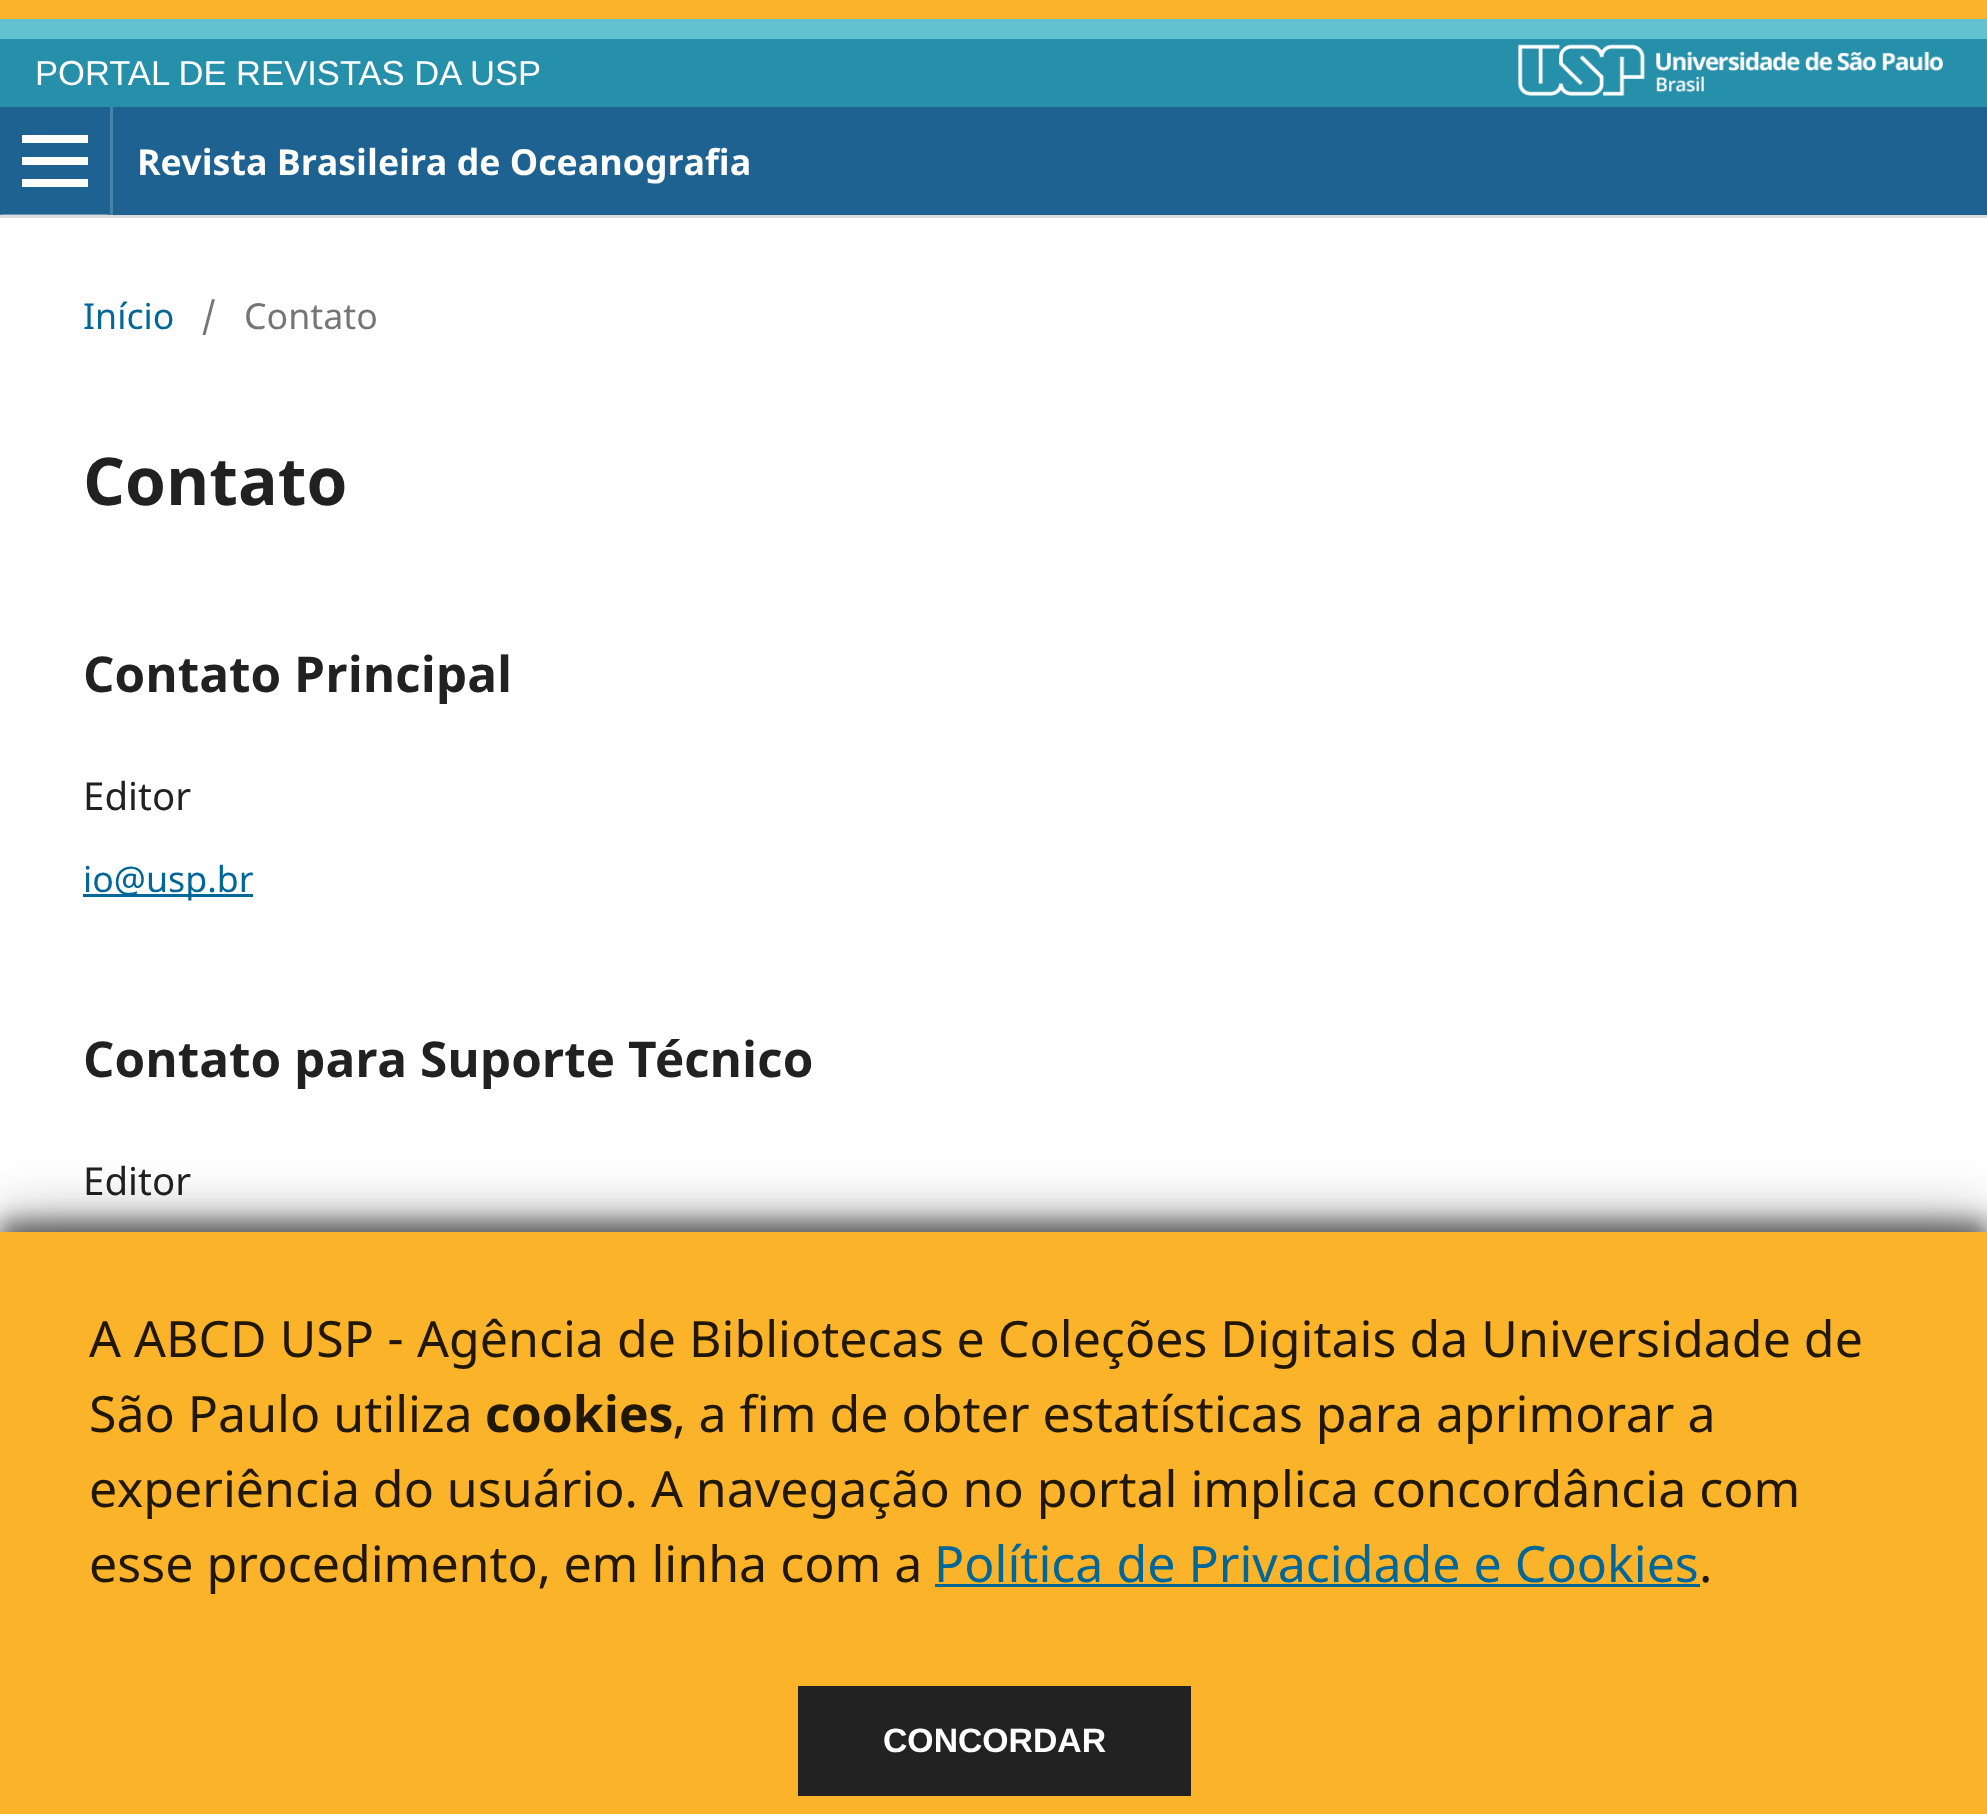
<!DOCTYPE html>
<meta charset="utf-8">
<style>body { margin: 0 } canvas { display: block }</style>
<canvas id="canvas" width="1987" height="1814"></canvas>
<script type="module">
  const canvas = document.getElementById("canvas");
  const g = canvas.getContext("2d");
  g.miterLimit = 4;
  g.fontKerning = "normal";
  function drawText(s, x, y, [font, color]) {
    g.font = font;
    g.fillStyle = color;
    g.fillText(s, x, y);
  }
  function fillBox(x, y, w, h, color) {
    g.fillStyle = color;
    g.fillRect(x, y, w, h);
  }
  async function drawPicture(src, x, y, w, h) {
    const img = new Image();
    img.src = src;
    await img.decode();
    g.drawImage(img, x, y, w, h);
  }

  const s1 = ["34.6px Liberation Sans", "#FFFFFF"];
  const s2 = ["bold 35.75px Noto Sans", "#FFFFFF"];
  const s3 = ["35.75px Noto Sans", "#006798"];
  const s4 = ["35.75px Noto Sans", "#757575"];
  const s5 = ["bold 66px Noto Sans", "#212121"];
  const s6 = ["bold 49.5px Noto Sans", "#212121"];
  const s7 = ["38.5px Noto Sans", "#212121"];
  const s8 = ["50.05px Noto Sans", "#211705"];
  const s9 = ["bold 50.05px Noto Sans", "#211705"];
  const s10 = ["50.05px Noto Sans", "#006798"];
  const s11 = ["bold 33.75px Liberation Sans", "#FFFFFF"];

  fillBox(0, 0, 1987, 1814, "#FFFFFF");
  fillBox(0, 0, 1987, 19, "#FBB42A");
  fillBox(0, 19, 1987, 20, "#62C2CF");
  fillBox(0, 39, 1987, 68, "#268FA9");
  drawText("PORTAL DE REVISTAS DA USP", 35, 85, s1);
  await drawPicture("pic1.png", 1518, 44, 425, 52);
  fillBox(0, 107, 1987, 108, "#1E6292");
  fillBox(0, 215, 1987, 3, "#DDDDDD");
  g.fillStyle = "#4B81A8";
  g.beginPath();
  g.moveTo(-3, 107);
  g.lineTo(-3, 215);
  g.lineTo(107, 215);
  g.lineTo(107, 214);
  g.lineTo(0, 214);
  g.lineTo(0, 107);
  g.lineTo(107, 107);
  g.closePath();
  g.fill();
  g.fillStyle = "rgba(255, 255, 255, 0.2)";
  g.beginPath();
  g.moveTo(3, 107);
  g.lineTo(110, 107);
  g.lineTo(110, 214);
  g.lineTo(3, 214);
  g.lineTo(3, 215);
  g.lineTo(113, 215);
  g.lineTo(113, 107);
  g.closePath();
  g.fill();
  fillBox(22, 179, 66, 8, "#FFFFFF");
  fillBox(22, 135, 66, 8, "#FFFFFF");
  fillBox(22, 157, 66, 8, "#FFFFFF");
  drawText("Revista Brasileira de Oceanografia", 137, 175, s2);
  drawText("Início", 83, 329, s3);
  drawText("/", 201, 329, s4);
  drawText("Contato", 244, 329, s4);
  drawText("Contato", 83, 505, s5);
  drawText("Contato Principal", 83, 692, s6);
  drawText("Editor", 83, 810, s7);
  fillBox(83, 894, 170, 3, "#006798");
  drawText("io@usp.br", 83, 892, s3);
  drawText("Contato para Suporte Técnico", 83, 1077, s6);
  drawText("Editor", 83, 1195, s7);
  g.fillStyle = "rgba(0, 0, 0, 0.3)";
  g.filter = "blur(27.5px)";
  g.beginPath();
  g.rect(0, 1216, 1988, 583);
  g.fill();
  g.filter = "none";
  g.fillStyle = "rgba(0, 0, 0, 0.5)";
  g.filter = "blur(11px)";
  g.beginPath();
  g.rect(0, 1221, 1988, 583);
  g.fill();
  g.filter = "none";
  fillBox(0, 1232, 1987, 582, "#FBB42A");
  drawText("A ABCD USP - Agência de Bibliotecas e Coleções Digitais da Universidade de", 89, 1357, s8);
  drawText("São Paulo utiliza", 89, 1432, s8);
  drawText("cookies", 485, 1432, s9);
  drawText(", a fim de obter estatísticas para aprimorar a", 673, 1432, s8);
  g.wordSpacing = "-0.1px";
  drawText("experiência do usuário. A navegação no portal implica concordância com", 89, 1507, s8);
  g.wordSpacing = "0px";
  drawText("esse procedimento, em linha com a", 89, 1582, s8);
  drawText("Política de Privacidade e Cookies", 934, 1582, s10);
  fillBox(935, 1584, 765, 3, "#006798");
  drawText(".", 1699, 1582, s8);
  fillBox(798, 1686, 393, 110, "#222222");
  drawText("CONCORDAR", 883, 1752, s11);
</script>
